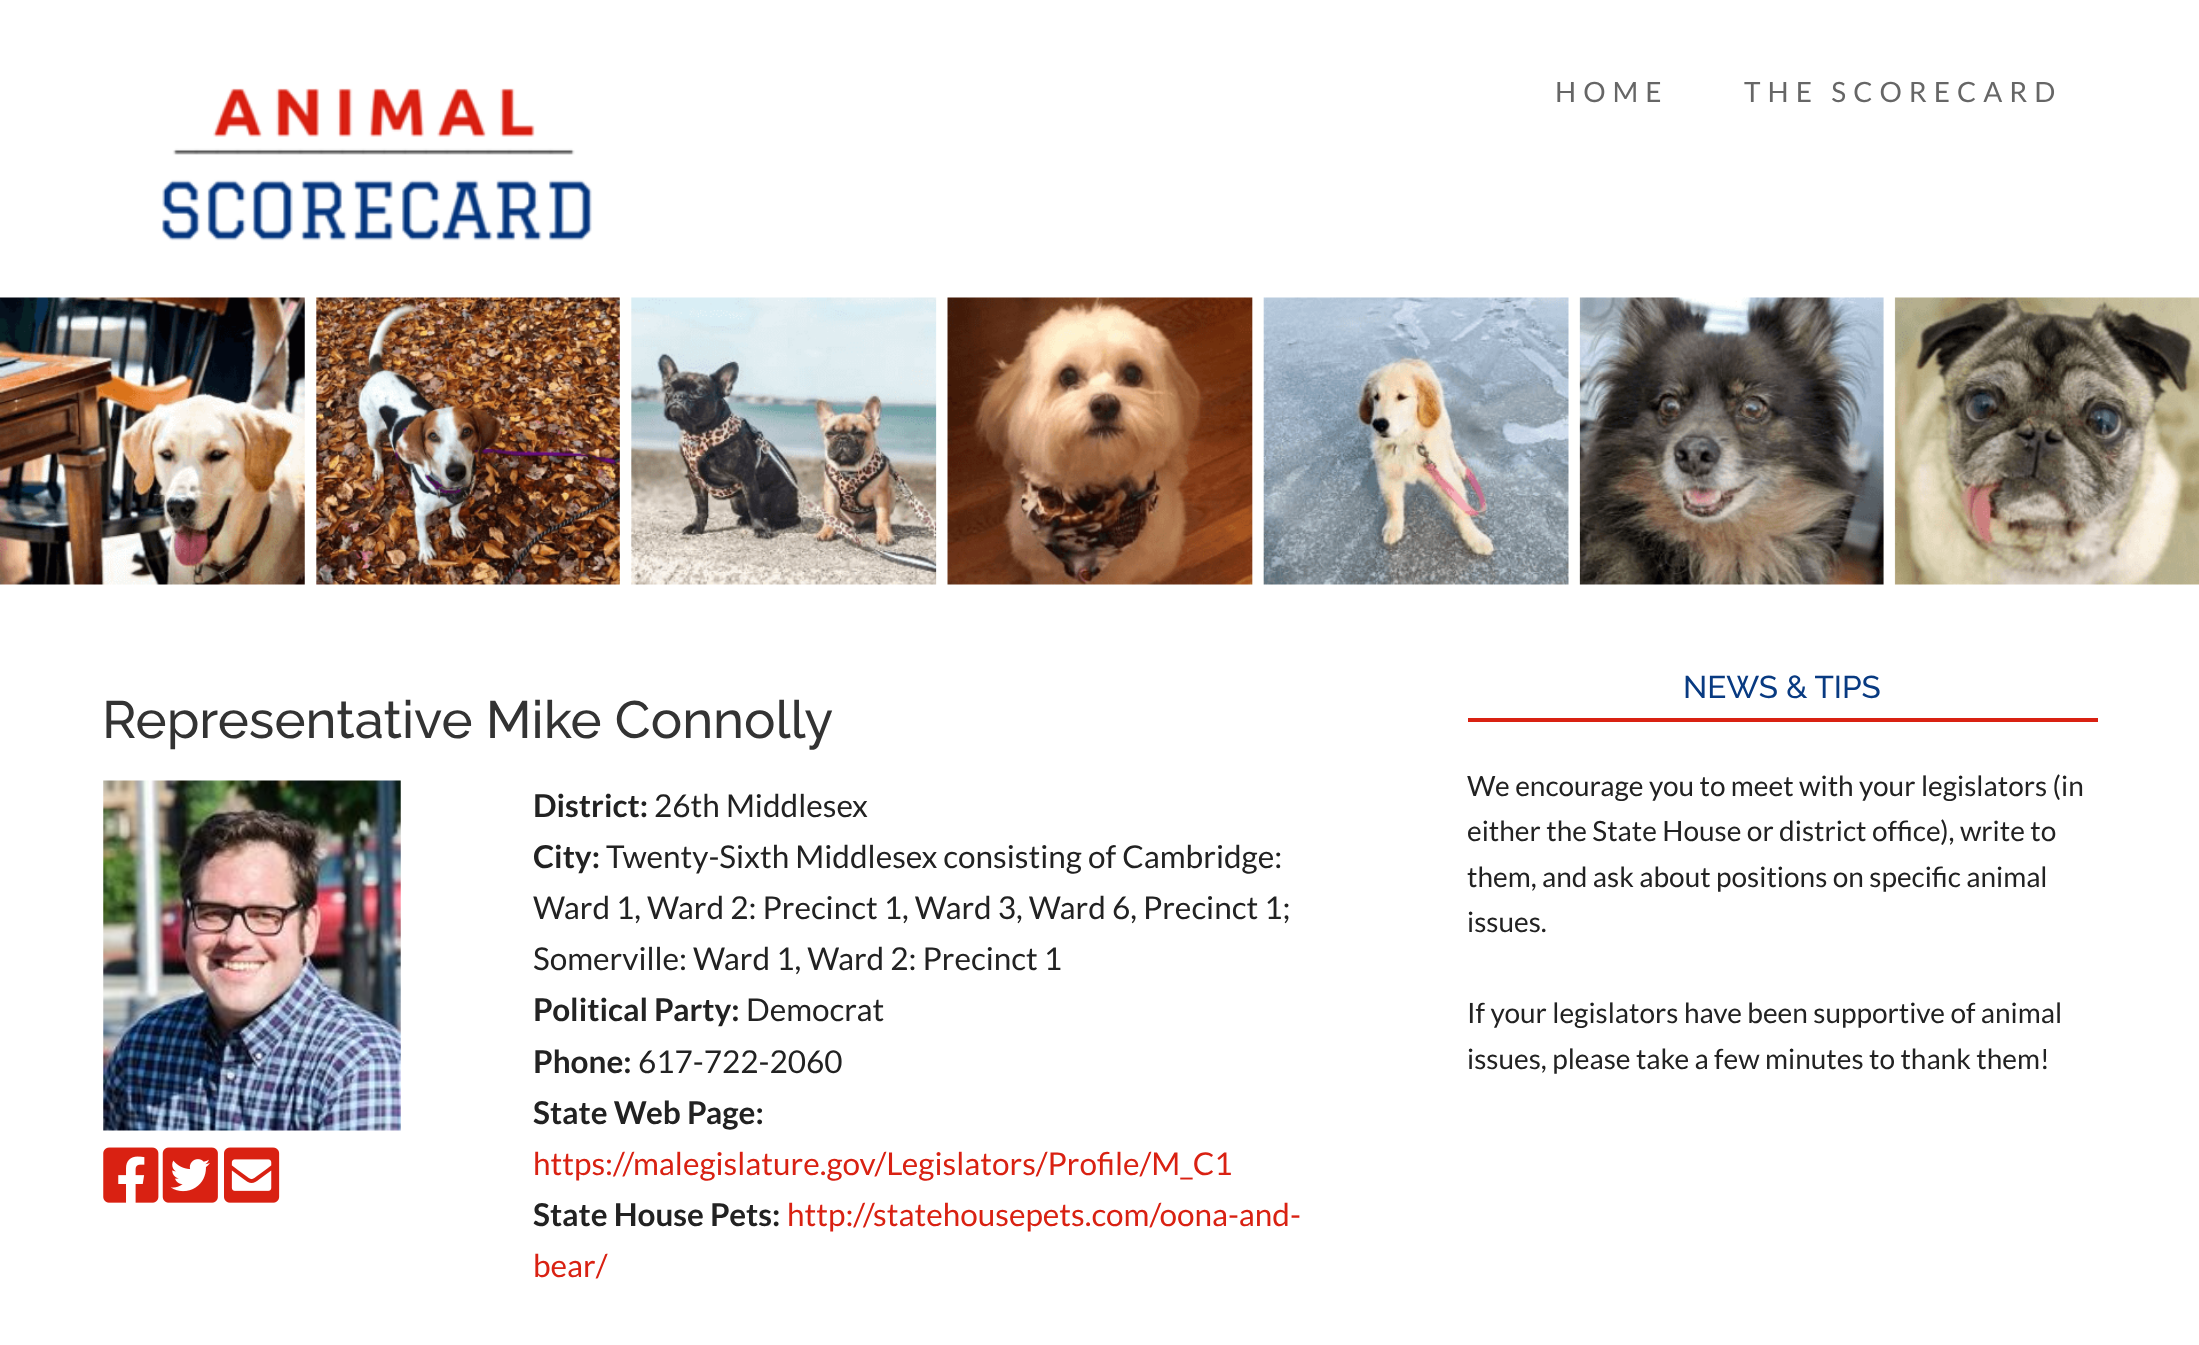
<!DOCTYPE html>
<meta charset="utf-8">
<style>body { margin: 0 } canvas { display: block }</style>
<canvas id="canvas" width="2199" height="1345"></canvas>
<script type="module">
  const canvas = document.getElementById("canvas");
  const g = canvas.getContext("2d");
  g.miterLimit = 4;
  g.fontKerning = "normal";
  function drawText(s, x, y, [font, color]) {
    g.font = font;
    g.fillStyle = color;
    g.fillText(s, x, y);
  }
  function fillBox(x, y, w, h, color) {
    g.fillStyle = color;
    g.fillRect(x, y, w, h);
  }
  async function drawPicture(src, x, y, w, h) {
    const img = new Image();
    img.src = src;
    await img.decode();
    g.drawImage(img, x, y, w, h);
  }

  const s1 = ["28px Lato", "#666666"];
  const s2 = ["500 52.5px Raleway", "#333333"];
  const s3 = ["bold 31.5px Lato", "#222222"];
  const s4 = ["31.5px Lato", "#222222"];
  const s5 = ["31.5px Lato", "#D92112"];
  const s6 = ["500 31.5px Raleway", "#083A81"];
  const s7 = ["28px Lato", "#222222"];

  fillBox(0, 0, 2199, 1345, "#FFFFFF");
  await drawPicture("pic1.png", 162, 88, 430, 153);
  g.letterSpacing = "7px";
  drawText("HOME", 1555, 102, s1);
  drawText("THE SCORECARD", 1744, 102, s1);
  await drawPicture("pic2.png", 0, 297, 2199, 288);
  g.letterSpacing = "0px";
  drawText("Representative Mike Connolly", 102, 738, s2);
  await drawPicture("pic3.png", 103, 780, 298, 351);
  await drawPicture("pic4.png", 103, 1147, 56, 56);
  await drawPicture("pic5.png", 162, 1147, 56, 56);
  await drawPicture("pic6.png", 224, 1147, 56, 56);
  drawText("District:", 533, 817, s3);
  drawText("26th Middlesex", 654, 817, s4);
  drawText("City:", 533, 868, s3);
  drawText("Twenty-Sixth Middlesex consisting of Cambridge:", 606, 868, s4);
  drawText("Ward 1, Ward 2: Precinct 1, Ward 3, Ward 6, Precinct 1;", 533, 919, s4);
  drawText("Somerville: Ward 1, Ward 2: Precinct 1", 533, 970, s4);
  drawText("Political Party:", 533, 1021, s3);
  drawText("Democrat", 746, 1021, s4);
  drawText("Phone:", 533, 1073, s3);
  drawText("617-722-2060", 638, 1073, s4);
  drawText("State Web Page:", 533, 1124, s3);
  drawText("https://malegislature.gov/Legislators/Profile/M_C1", 533, 1175, s5);
  drawText("State House Pets:", 533, 1226, s3);
  drawText("http://statehousepets.com/oona-and-", 787, 1226, s5);
  drawText("bear/", 533, 1277, s5);
  fillBox(1468, 718, 630, 4, "#D92112");
  drawText("NEWS & TIPS", 1683, 698, s6);
  drawText("We encourage you to meet with your legislators (in", 1467, 796, s7);
  drawText("either the State House or district office), write to", 1467, 841, s7);
  drawText("them, and ask about positions on specific animal", 1467, 887, s7);
  drawText("issues.", 1467, 932, s7);
  drawText("If your legislators have been supportive of animal", 1467, 1023, s7);
  drawText("issues, please take a few minutes to thank them!", 1467, 1069, s7);
</script>
